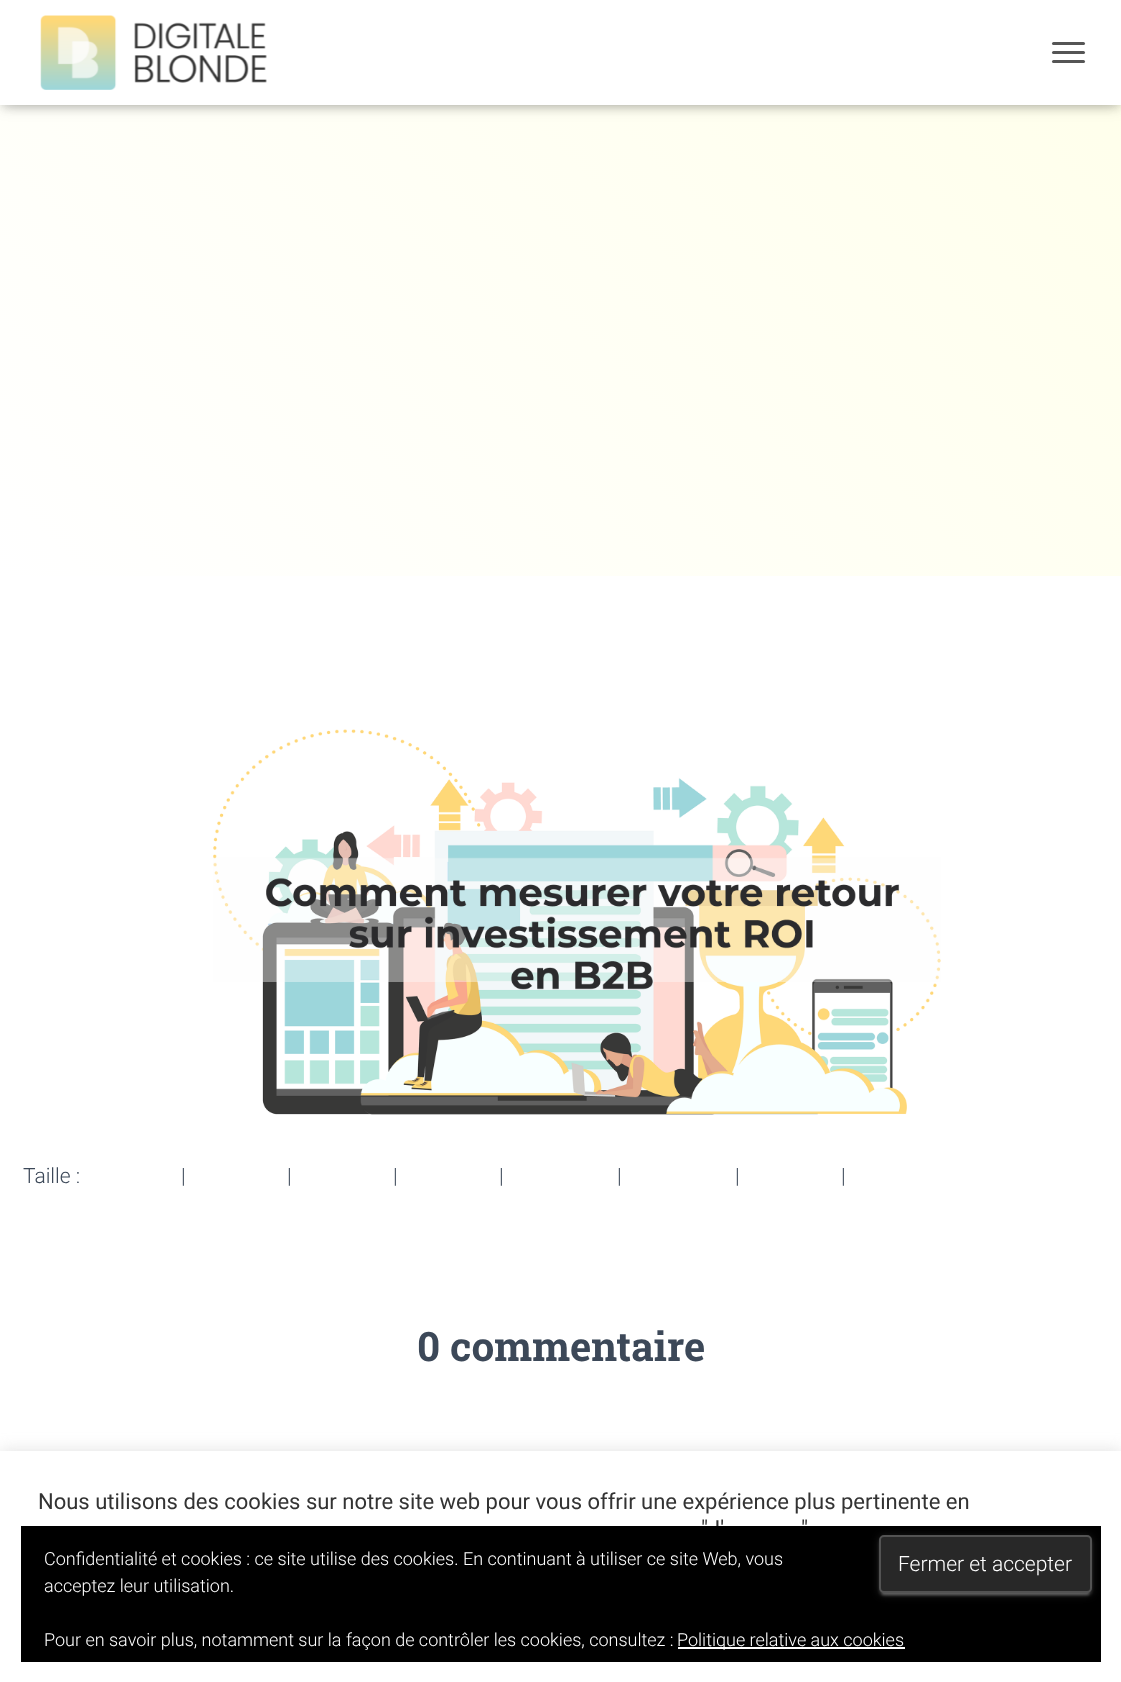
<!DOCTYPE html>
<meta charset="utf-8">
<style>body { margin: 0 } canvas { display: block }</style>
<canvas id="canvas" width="1121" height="1682"></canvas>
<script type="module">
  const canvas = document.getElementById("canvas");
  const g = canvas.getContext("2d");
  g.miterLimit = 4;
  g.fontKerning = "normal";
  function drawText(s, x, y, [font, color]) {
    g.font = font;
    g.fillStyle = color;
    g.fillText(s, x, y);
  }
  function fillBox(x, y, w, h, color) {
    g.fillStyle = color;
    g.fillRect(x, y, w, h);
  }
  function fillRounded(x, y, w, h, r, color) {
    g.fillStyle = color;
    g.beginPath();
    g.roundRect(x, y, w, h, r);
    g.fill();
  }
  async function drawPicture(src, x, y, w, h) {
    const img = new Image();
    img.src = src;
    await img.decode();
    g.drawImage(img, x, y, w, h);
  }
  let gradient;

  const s1 = ["300 21px Roboto", "#3C4858"];
  const s2 = ["bold 40.5px Roboto Slab", "#3C4858"];
  const s3 = ["22px Roboto", "#333333"];
  const s4 = ["300 18px Roboto", "#FFFFFF"];
  const s5 = ["300 21px Roboto", "#FFFFFF"];

  fillBox(0, 0, 1121, 1682, "#FFFFFF");
  gradient = g.createLinearGradient(134, 710, 989, -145);
  gradient.addColorStop(0, "#FFFFFF");
  gradient.addColorStop(1, "#FFFFEA");
  g.fillStyle = gradient;
  g.fillRect(0, 105, 1121, 471);
  g.fillStyle = "rgba(0, 0, 0, 0.1)";
  g.filter = "blur(4px)";
  g.beginPath();
  g.rect(3, 9, 1116, 99);
  g.fill();
  g.filter = "none";
  g.fillStyle = "rgba(0, 0, 0, 0.12)";
  g.filter = "blur(7.5px)";
  g.beginPath();
  g.rect(0, 2, 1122, 105);
  g.fill();
  g.filter = "none";
  g.fillStyle = "rgba(0, 0, 0, 0.42)";
  g.filter = "blur(7.5px)";
  g.beginPath();
  g.rect(9, 11, 1104, 87);
  g.fill();
  g.filter = "none";
  fillBox(0, 0, 1121, 105, "#FFFFFF");
  await drawPicture("pic1.png", 40, 15, 227, 75);
  fillRounded(1052, 42, 33, 3, 1.5, "#555555");
  fillRounded(1052, 51, 33, 3, 1.5, "#555555");
  fillRounded(1052, 60, 33, 3, 1.5, "#555555");
  await drawPicture("pic2.png", 213, 729, 728, 386);
  drawText("Taille :", 23, 1183, s1);
  drawText("|", 181, 1183, s1);
  drawText("|", 287, 1183, s1);
  drawText("|", 393, 1183, s1);
  drawText("|", 499, 1183, s1);
  drawText("|", 617, 1183, s1);
  drawText("|", 735, 1183, s1);
  drawText("|", 841, 1183, s1);
  drawText("0 commentaire", 417, 1361, s2);
  g.fillStyle = "rgba(172, 171, 171, 0.3)";
  g.filter = "blur(7.5px)";
  g.beginPath();
  g.rect(0, 1449, 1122, 233);
  g.fill();
  g.filter = "none";
  fillBox(0, 1451, 1121, 231, "#FFFFFF");
  drawText("Nous utilisons des cookies sur notre site web pour vous offrir une expérience plus pertinente en", 38, 1509, s3);
  drawText("\"J'", 701, 1536, s3);
  drawText("\"", 801, 1536, s3);
  fillBox(21, 1526, 1080, 136, "#000000");
  drawText("Confidentialité et cookies : ce site utilise des cookies. En continuant à utiliser ce site Web, vous", 44, 1565, s4);
  g.fillStyle = "rgba(255, 255, 255, 0.12)";
  g.filter = "blur(4px)";
  g.beginPath();
  g.roundRect(879, 1536, 213, 59, 5);
  g.fill();
  g.filter = "none";
  g.fillStyle = "rgba(255, 255, 255, 0.2)";
  g.filter = "blur(1px)";
  g.beginPath();
  g.roundRect(882, 1542, 207, 53, 1.5);
  g.fill();
  g.filter = "none";
  g.fillStyle = "rgba(255, 255, 255, 0.14)";
  g.filter = "blur(1.5px)";
  g.beginPath();
  g.roundRect(879, 1538, 213, 58, 5);
  g.fill();
  g.filter = "none";
  g.fillStyle = "#282828";
  g.beginPath();
  g.roundRect(880, 1536, 211, 56, 4);
  g.fill();
  g.strokeStyle = "#535353";
  g.lineWidth = 2;
  g.stroke();
  drawText("Fermer et accepter", 898, 1571, s5);
  drawText("acceptez leur utilisation.", 44, 1592, s4);
  drawText("Pour en savoir plus, notamment sur la façon de contrôler les cookies, consultez :", 44, 1646, s4);
  fillBox(678, 1647, 227, 2, "#FFFFFF");
  drawText("Politique relative aux cookies", 677, 1646, s4);
</script>
